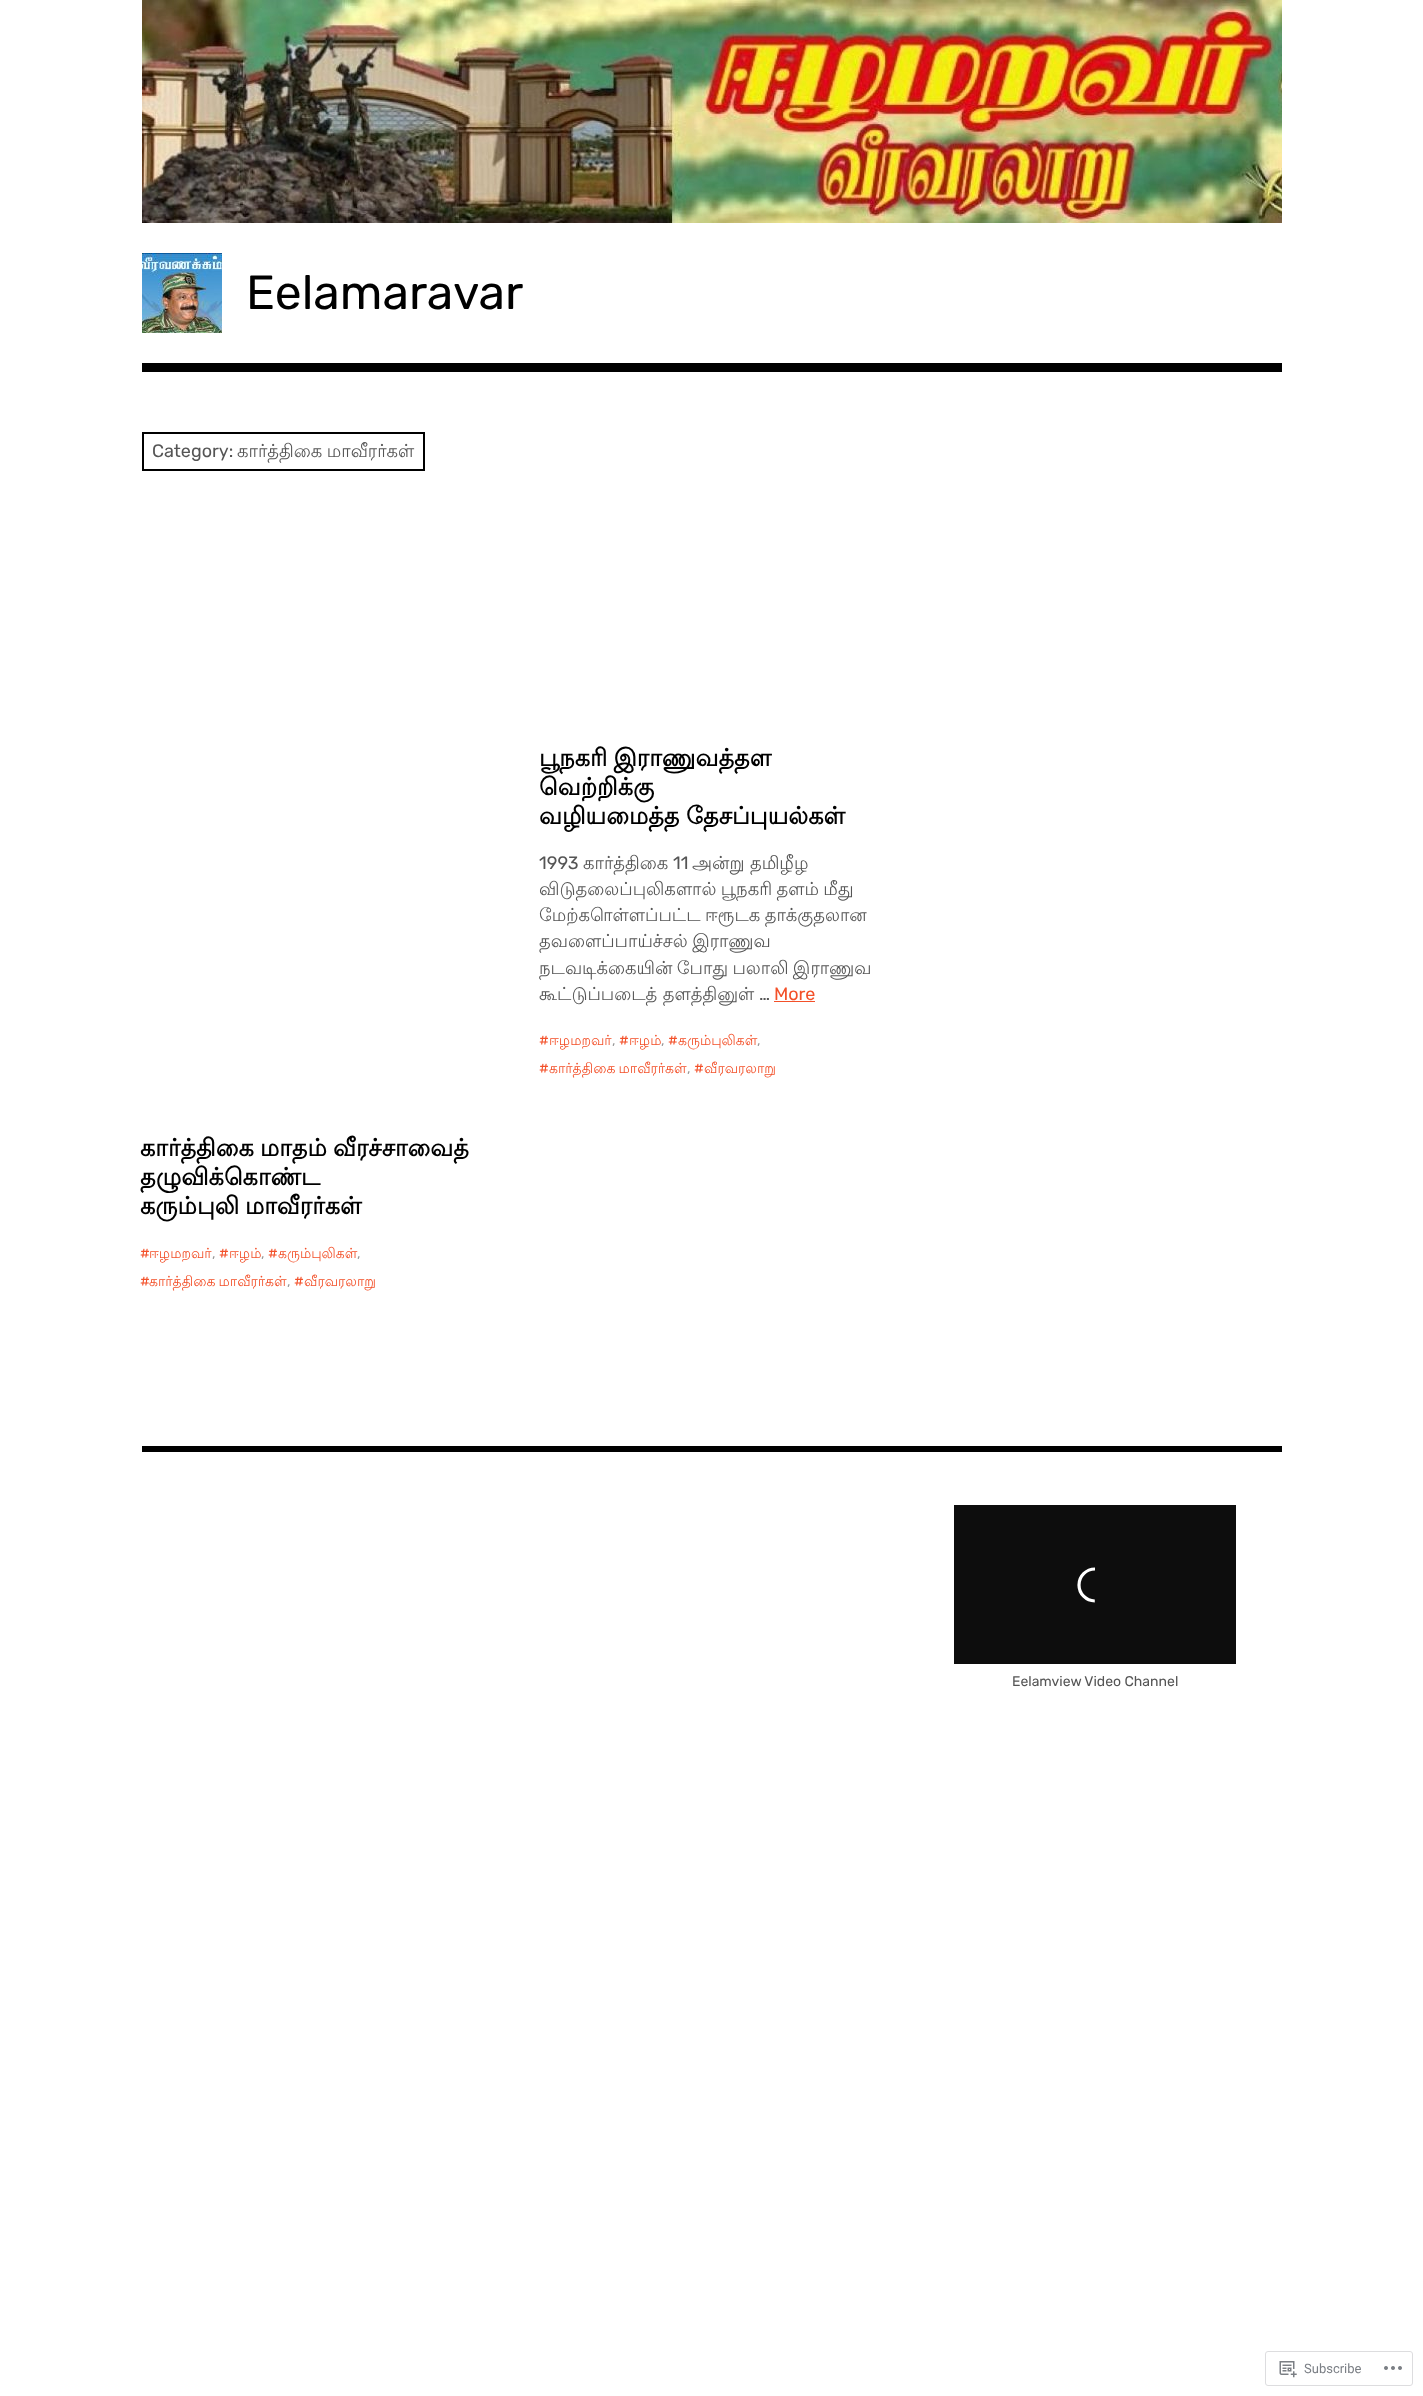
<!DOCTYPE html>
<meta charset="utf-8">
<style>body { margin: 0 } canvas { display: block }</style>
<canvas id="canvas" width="1423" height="2396"></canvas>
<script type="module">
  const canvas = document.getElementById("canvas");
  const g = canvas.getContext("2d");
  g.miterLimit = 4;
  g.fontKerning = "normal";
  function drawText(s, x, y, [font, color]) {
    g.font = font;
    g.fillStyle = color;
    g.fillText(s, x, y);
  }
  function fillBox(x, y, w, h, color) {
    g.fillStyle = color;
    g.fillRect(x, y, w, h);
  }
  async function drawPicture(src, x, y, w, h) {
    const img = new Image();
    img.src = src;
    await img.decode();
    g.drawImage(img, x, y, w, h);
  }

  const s1 = ["48px Rubik", "#000000"];
  const s2 = ["18px Rubik", "#555555"];
  const s3 = ["18px Lohit Tamil", "#555555"];
  const s4 = ["bold 24px Lohit Tamil", "#000000"];
  const s5 = ["18px Rubik", "#F35029"];
  const s6 = ["14px Rubik", "#F35029"];
  const s7 = ["14px Lohit Tamil", "#F35029"];
  const s8 = ["14px Rubik", "#999999"];
  const s9 = ["14px Rubik", "#555555"];
  const s10 = ["13px Roboto", "#7B7F85"];

  fillBox(0, 0, 1423, 2396, "#FFFFFF");
  await drawPicture("pic1.png", 142, 0, 1140, 223);
  fillBox(142, 363, 1140, 9, "#000000");
  await drawPicture("pic2.png", 142, 253, 80, 80);
  drawText("Eelamaravar", 246, 309, s1);
  g.strokeStyle = "#000000";
  g.lineWidth = 2;
  g.strokeRect(143, 433, 281, 37);
  drawText("Category:", 152, 457, s2);
  g.wordSpacing = "-1px";
  drawText("கார்த்திகை மாவீரர்கள்", 237, 457, s3);
  drawText("பூநகரி இராணுவத்தள", 539, 766, s4);
  g.wordSpacing = "0px";
  drawText("வெற்றிக்கு", 539, 795, s4);
  drawText("வழியமைத்த", 539, 824, s4);
  drawText("தேசப்புயல்கள்", 686, 824, s4);
  drawText("1993", 539, 869, s2);
  drawText("கார்த்திகை", 583, 869, s3);
  drawText("11", 673, 869, s2);
  drawText("அன்று தமிழீழ", 692, 869, s3);
  g.wordSpacing = "-1px";
  drawText("விடுதலைப்புலிகளால் பூநகரி தளம் மீது", 539, 895, s3);
  drawText("மேற்கொள்ளப்பட்ட ஈரூடக தாக்குதலான", 539, 921, s3);
  drawText("தவளைப்பாய்ச்சல் இராணுவ", 539, 947, s3);
  drawText("நடவடிக்கையின் போது பலாலி இராணுவ", 539, 974, s3);
  g.wordSpacing = "0px";
  drawText("கூட்டுப்படைத் தளத்தினுள்", 539, 1000, s3);
  drawText("…", 759, 1000, s2);
  drawText("More", 774, 1000, s5);
  fillBox(774, 1001, 41, 1, "#F35029");
  drawText("#", 539, 1045, s6);
  drawText("ஈழமறவர்", 549, 1045, s7);
  drawText(",", 612, 1045, s8);
  drawText("#", 619, 1045, s6);
  drawText("ஈழம்", 629, 1045, s7);
  drawText(",", 661, 1045, s8);
  drawText("#", 668, 1045, s6);
  drawText("கரும்புலிகள்", 678, 1045, s7);
  drawText(",", 757, 1045, s8);
  drawText("#", 539, 1073, s6);
  g.wordSpacing = "-1px";
  drawText("கார்த்திகை மாவீரர்கள்", 549, 1073, s7);
  g.wordSpacing = "0px";
  drawText(",", 687, 1073, s8);
  drawText("#", 694, 1073, s6);
  drawText("வீரவரலாறு", 704, 1073, s7);
  drawText("கார்த்திகை", 140, 1156, s4);
  g.wordSpacing = "-1px";
  drawText("மாதம் வீரச்சாவைத்", 260, 1156, s4);
  g.wordSpacing = "0px";
  drawText("தழுவிக்கொண்ட", 140, 1185, s4);
  drawText("கரும்புலி", 140, 1214, s4);
  drawText("மாவீரர்கள்", 245, 1214, s4);
  drawText("#", 140, 1258, s6);
  drawText("ஈழமறவர்", 149, 1258, s7);
  drawText(",", 212, 1258, s8);
  drawText("#", 219, 1258, s6);
  drawText("ஈழம்", 229, 1258, s7);
  drawText(",", 261, 1258, s8);
  drawText("#", 268, 1258, s6);
  drawText("கரும்புலிகள்", 278, 1258, s7);
  drawText(",", 357, 1258, s8);
  drawText("#", 140, 1286, s6);
  g.wordSpacing = "-1px";
  drawText("கார்த்திகை மாவீரர்கள்", 149, 1286, s7);
  g.wordSpacing = "0px";
  drawText(",", 287, 1286, s8);
  drawText("#", 294, 1286, s6);
  drawText("வீரவரலாறு", 304, 1286, s7);
  fillBox(142, 1446, 1140, 6, "#000000");
  await drawPicture("pic3.png", 954, 1505, 282, 159);
  drawText("Eelamview Video Channel", 1012, 1686, s9);
  g.beginPath();
  g.roundRect(1265.5, 2351.5, 147, 34, 2.5);
  g.strokeStyle = "#DDDDDF";
  g.lineWidth = 1;
  g.stroke();
  await drawPicture("pic4.png", 1279, 2361, 18, 17);
  drawText("Subscribe", 1304, 2373, s10);
  await drawPicture("pic5.png", 1384, 2366, 18, 4);
</script>
